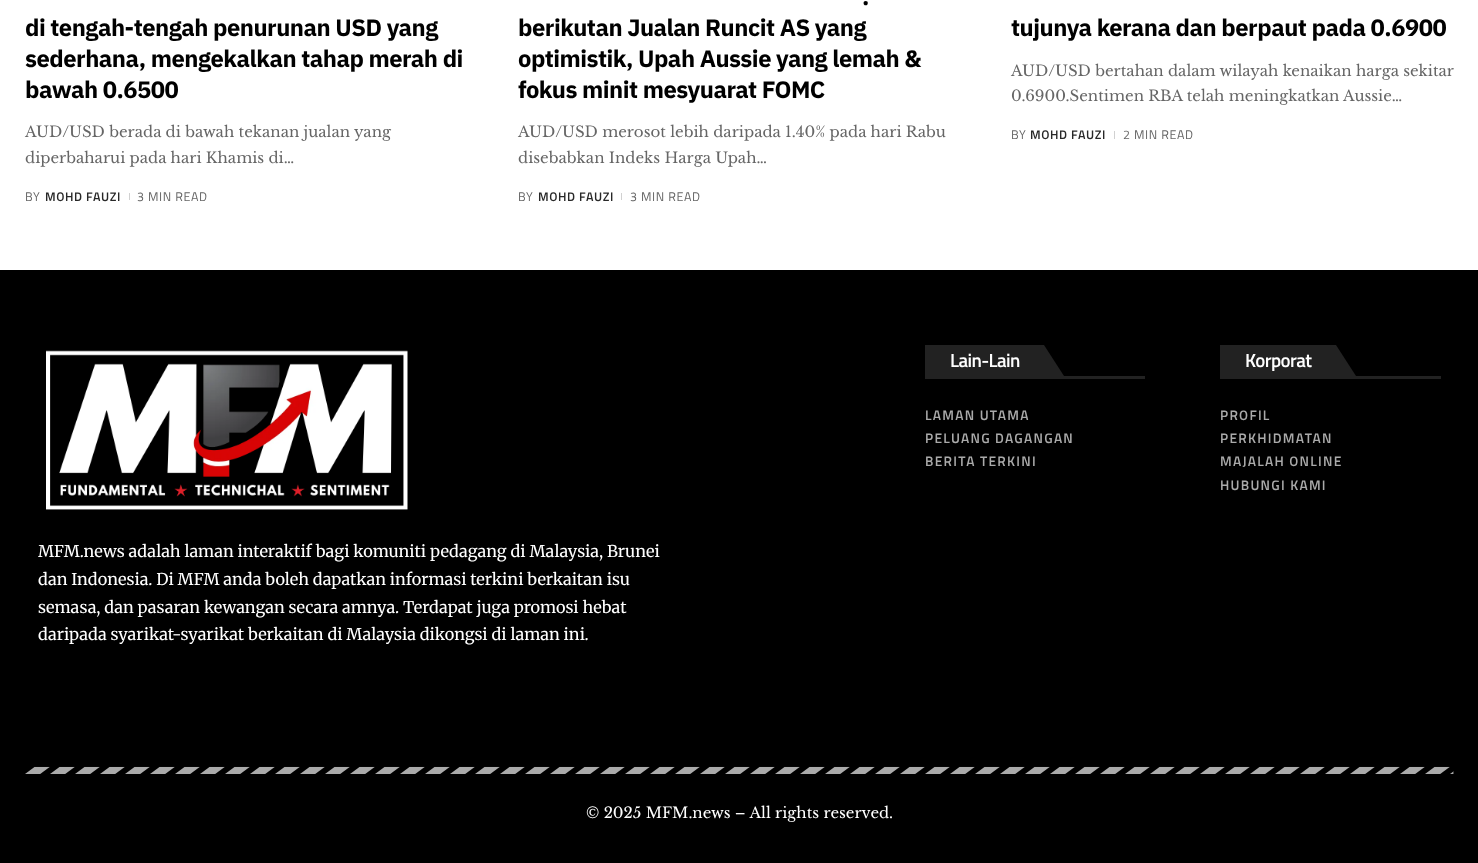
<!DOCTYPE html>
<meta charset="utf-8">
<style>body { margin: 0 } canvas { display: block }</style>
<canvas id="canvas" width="1478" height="863"></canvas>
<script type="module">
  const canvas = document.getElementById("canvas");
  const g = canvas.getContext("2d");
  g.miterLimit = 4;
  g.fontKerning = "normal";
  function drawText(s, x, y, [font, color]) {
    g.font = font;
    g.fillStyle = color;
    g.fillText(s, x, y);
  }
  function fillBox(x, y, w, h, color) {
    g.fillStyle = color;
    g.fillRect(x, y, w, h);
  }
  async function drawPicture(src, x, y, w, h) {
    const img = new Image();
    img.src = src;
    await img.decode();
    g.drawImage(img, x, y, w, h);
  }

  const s1 = ["bold 23.75px IBM Plex Sans", "#000000"];
  const s2 = ["15px Libre Baskerville", "#666666"];
  const s3 = ["12.5px Titillium Web", "#666666"];
  const s4 = ["600 12.5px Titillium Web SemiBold", "#282828"];
  const s5 = ["600 19px Titillium Web SemiBold", "#FFFFFF"];
  const s6 = ["600 13.75px Titillium Web SemiBold", "#AAAAAA"];
  const s7 = ["300 16.25px Merriweather", "#FFFFFF"];
  const s8 = ["15px Libre Baskerville", "#FFFFFF"];

  fillBox(0, 0, 1478, 863, "#FFFFFF");
  g.letterSpacing = "-0.5px";
  drawText("di tengah-tengah penurunan USD yang", 25, 36, s1);
  drawText("sederhana, mengekalkan tahap merah di", 25, 67, s1);
  drawText("bawah 0.6500", 25, 98, s1);
  g.letterSpacing = "0px";
  drawText("AUD/USD berada di bawah tekanan jualan yang", 25, 137, s2);
  drawText("diperbaharui pada hari Khamis di…", 25, 163, s2);
  g.letterSpacing = "0.6px";
  drawText("BY", 25, 201, s3);
  drawText("MOHD FAUZI", 45, 201, s4);
  fillBox(129, 193, 1, 7, "#D1D1D1");
  drawText("3 MIN READ", 137, 201, s3);
  g.letterSpacing = "-0.5px";
  drawText(".", 862, 5, s1);
  drawText("berikutan Jualan Runcit AS yang", 518, 36, s1);
  drawText("optimistik, Upah Aussie yang lemah &", 518, 67, s1);
  drawText("fokus minit mesyuarat FOMC", 518, 98, s1);
  g.letterSpacing = "0px";
  drawText("AUD/USD merosot lebih daripada 1.40% pada hari Rabu", 518, 137, s2);
  drawText("disebabkan Indeks Harga Upah…", 518, 163, s2);
  g.letterSpacing = "0.6px";
  drawText("BY", 518, 201, s3);
  drawText("MOHD FAUZI", 538, 201, s4);
  fillBox(621, 193, 1, 7, "#D1D1D1");
  drawText("3 MIN READ", 630, 201, s3);
  g.letterSpacing = "-0.5px";
  drawText("tujunya kerana dan berpaut pada 0.6900", 1011, 36, s1);
  g.letterSpacing = "0px";
  drawText("AUD/USD bertahan dalam wilayah kenaikan harga sekitar", 1011, 76, s2);
  drawText("0.6900.Sentimen RBA telah meningkatkan Aussie…", 1011, 101, s2);
  g.letterSpacing = "0.6px";
  drawText("BY", 1011, 139, s3);
  drawText("MOHD FAUZI", 1030, 139, s4);
  fillBox(1114, 131, 1, 8, "#D1D1D1");
  drawText("2 MIN READ", 1123, 139, s3);
  fillBox(0, 270, 1478, 593, "#000000");
  fillBox(925, 376, 220, 3, "#222222");
  fillBox(925, 345, 119, 31, "#222222");
  g.beginPath();
  g.moveTo(1044, 376);
  g.lineTo(1044, 345);
  g.lineTo(1064, 376);
  g.closePath();
  g.fill();
  g.letterSpacing = "-0.6px";
  drawText("Lain-Lain", 950, 367, s5);
  g.letterSpacing = "1.25px";
  drawText("LAMAN UTAMA", 925, 420, s6);
  drawText("PELUANG DAGANGAN", 925, 443, s6);
  drawText("BERITA TERKINI", 925, 466, s6);
  fillBox(1220, 376, 221, 3, "#222222");
  fillBox(1220, 345, 116, 31, "#222222");
  g.beginPath();
  g.moveTo(1336, 376);
  g.lineTo(1336, 345);
  g.lineTo(1356, 376);
  g.closePath();
  g.fill();
  g.letterSpacing = "-0.6px";
  drawText("Korporat", 1245, 367, s5);
  g.letterSpacing = "1.25px";
  drawText("PROFIL", 1220, 420, s6);
  drawText("PERKHIDMATAN", 1220, 443, s6);
  drawText("MAJALAH ONLINE", 1220, 466, s6);
  drawText("HUBUNGI KAMI", 1220, 490, s6);
  await drawPicture("pic1.png", 46, 350, 362, 160);
  g.letterSpacing = "0px";
  drawText("MFM.news adalah laman interaktif bagi komuniti pedagang di Malaysia, Brunei", 38, 557, s7);
  drawText("dan Indonesia. Di MFM anda boleh dapatkan informasi terkini berkaitan isu", 38, 585, s7);
  drawText("semasa, dan pasaran kewangan secara amnya. Terdapat juga promosi hebat", 38, 613, s7);
  drawText("daripada syarikat-syarikat berkaitan di Malaysia dikongsi di laman ini.", 38, 640, s7);
  await drawPicture("pic2.png", 25, 766, 1429, 8);
  drawText("© 2025 MFM.news – All rights reserved.", 586, 818, s8);
</script>
